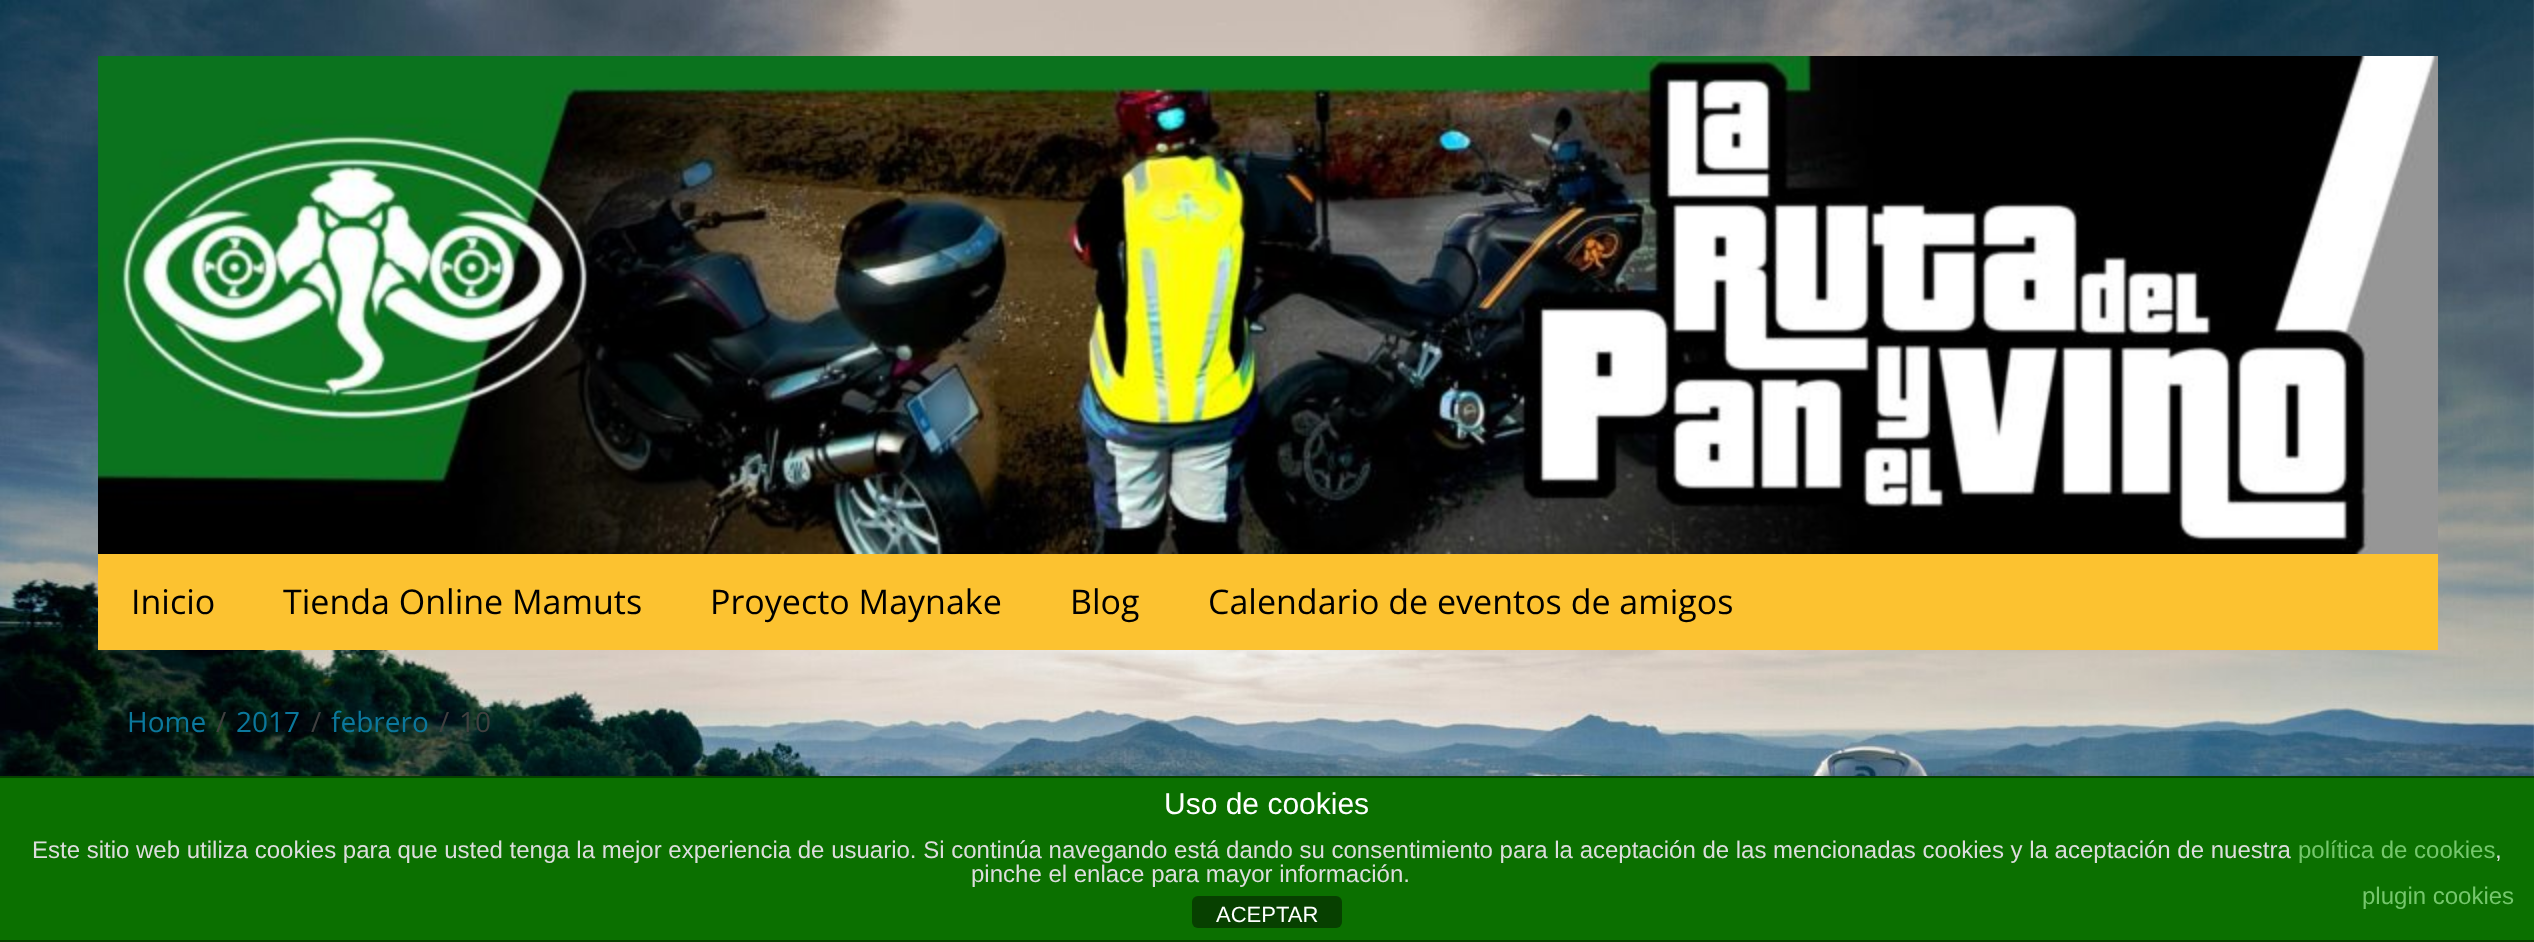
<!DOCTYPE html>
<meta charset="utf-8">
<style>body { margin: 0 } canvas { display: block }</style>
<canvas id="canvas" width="2534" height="942"></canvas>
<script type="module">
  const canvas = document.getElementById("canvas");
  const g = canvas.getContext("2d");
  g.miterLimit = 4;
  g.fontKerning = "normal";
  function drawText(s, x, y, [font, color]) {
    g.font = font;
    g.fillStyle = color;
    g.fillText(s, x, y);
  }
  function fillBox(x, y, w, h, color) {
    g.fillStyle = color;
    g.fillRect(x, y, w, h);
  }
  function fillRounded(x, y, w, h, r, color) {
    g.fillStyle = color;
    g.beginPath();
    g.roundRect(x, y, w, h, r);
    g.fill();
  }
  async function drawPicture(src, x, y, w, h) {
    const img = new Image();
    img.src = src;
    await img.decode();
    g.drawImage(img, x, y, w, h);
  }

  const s1 = ["34px Open Sans", "#000000"];
  const s2 = ["28px Open Sans", "#0B789C"];
  const s3 = ["28px Open Sans", "#404040"];
  const s4 = ["30px Liberation Sans", "#FFFFFF"];
  const s5 = ["24px Liberation Sans", "#DDDDDD"];
  const s6 = ["24px Liberation Sans", "#75C76C"];
  const s7 = ["22px Liberation Sans", "#FFFFFF"];

  fillBox(0, 0, 2534, 942, "#FFFFFF");
  await drawPicture("pic1.png", 0, 0, 2534, 776);
  await drawPicture("pic2.png", 98, 56, 2340, 498);
  fillBox(98, 554, 2340, 96, "#FCC230");
  drawText("Inicio", 131, 614, s1);
  drawText("Tienda Online Mamuts", 283, 614, s1);
  drawText("Proyecto Maynake", 710, 614, s1);
  drawText("Blog", 1070, 614, s1);
  drawText("Calendario de eventos de amigos", 1208, 614, s1);
  drawText("Home", 127, 732, s2);
  drawText("/", 216, 732, s3);
  drawText("2017", 236, 732, s2);
  drawText("/", 311, 732, s3);
  drawText("febrero", 331, 732, s2);
  drawText("/", 439, 732, s3);
  drawText("10", 459, 732, s3);
  fillBox(0, 778, 2534, 162, "#0B7000");
  fillBox(0, 776, 2534, 2, "#064000");
  fillBox(0, 940, 2534, 2, "#064000");
  drawText("Uso de cookies", 1164, 814, s4);
  drawText("Este sitio web utiliza cookies para que usted tenga la mejor experiencia de usuario. Si continúa navegando está dando su consentimiento para la aceptación de las mencionadas cookies y la aceptación de nuestra", 32, 858, s5);
  drawText("política de cookies", 2298, 858, s6);
  drawText(",", 2495, 858, s5);
  drawText("pinche el enlace para mayor información.", 971, 882, s5);
  drawText("plugin cookies", 2362, 904, s6);
  fillRounded(1192, 896, 150, 32, 6, "#074000");
  drawText("ACEPTAR", 1216, 922, s7);
</script>
